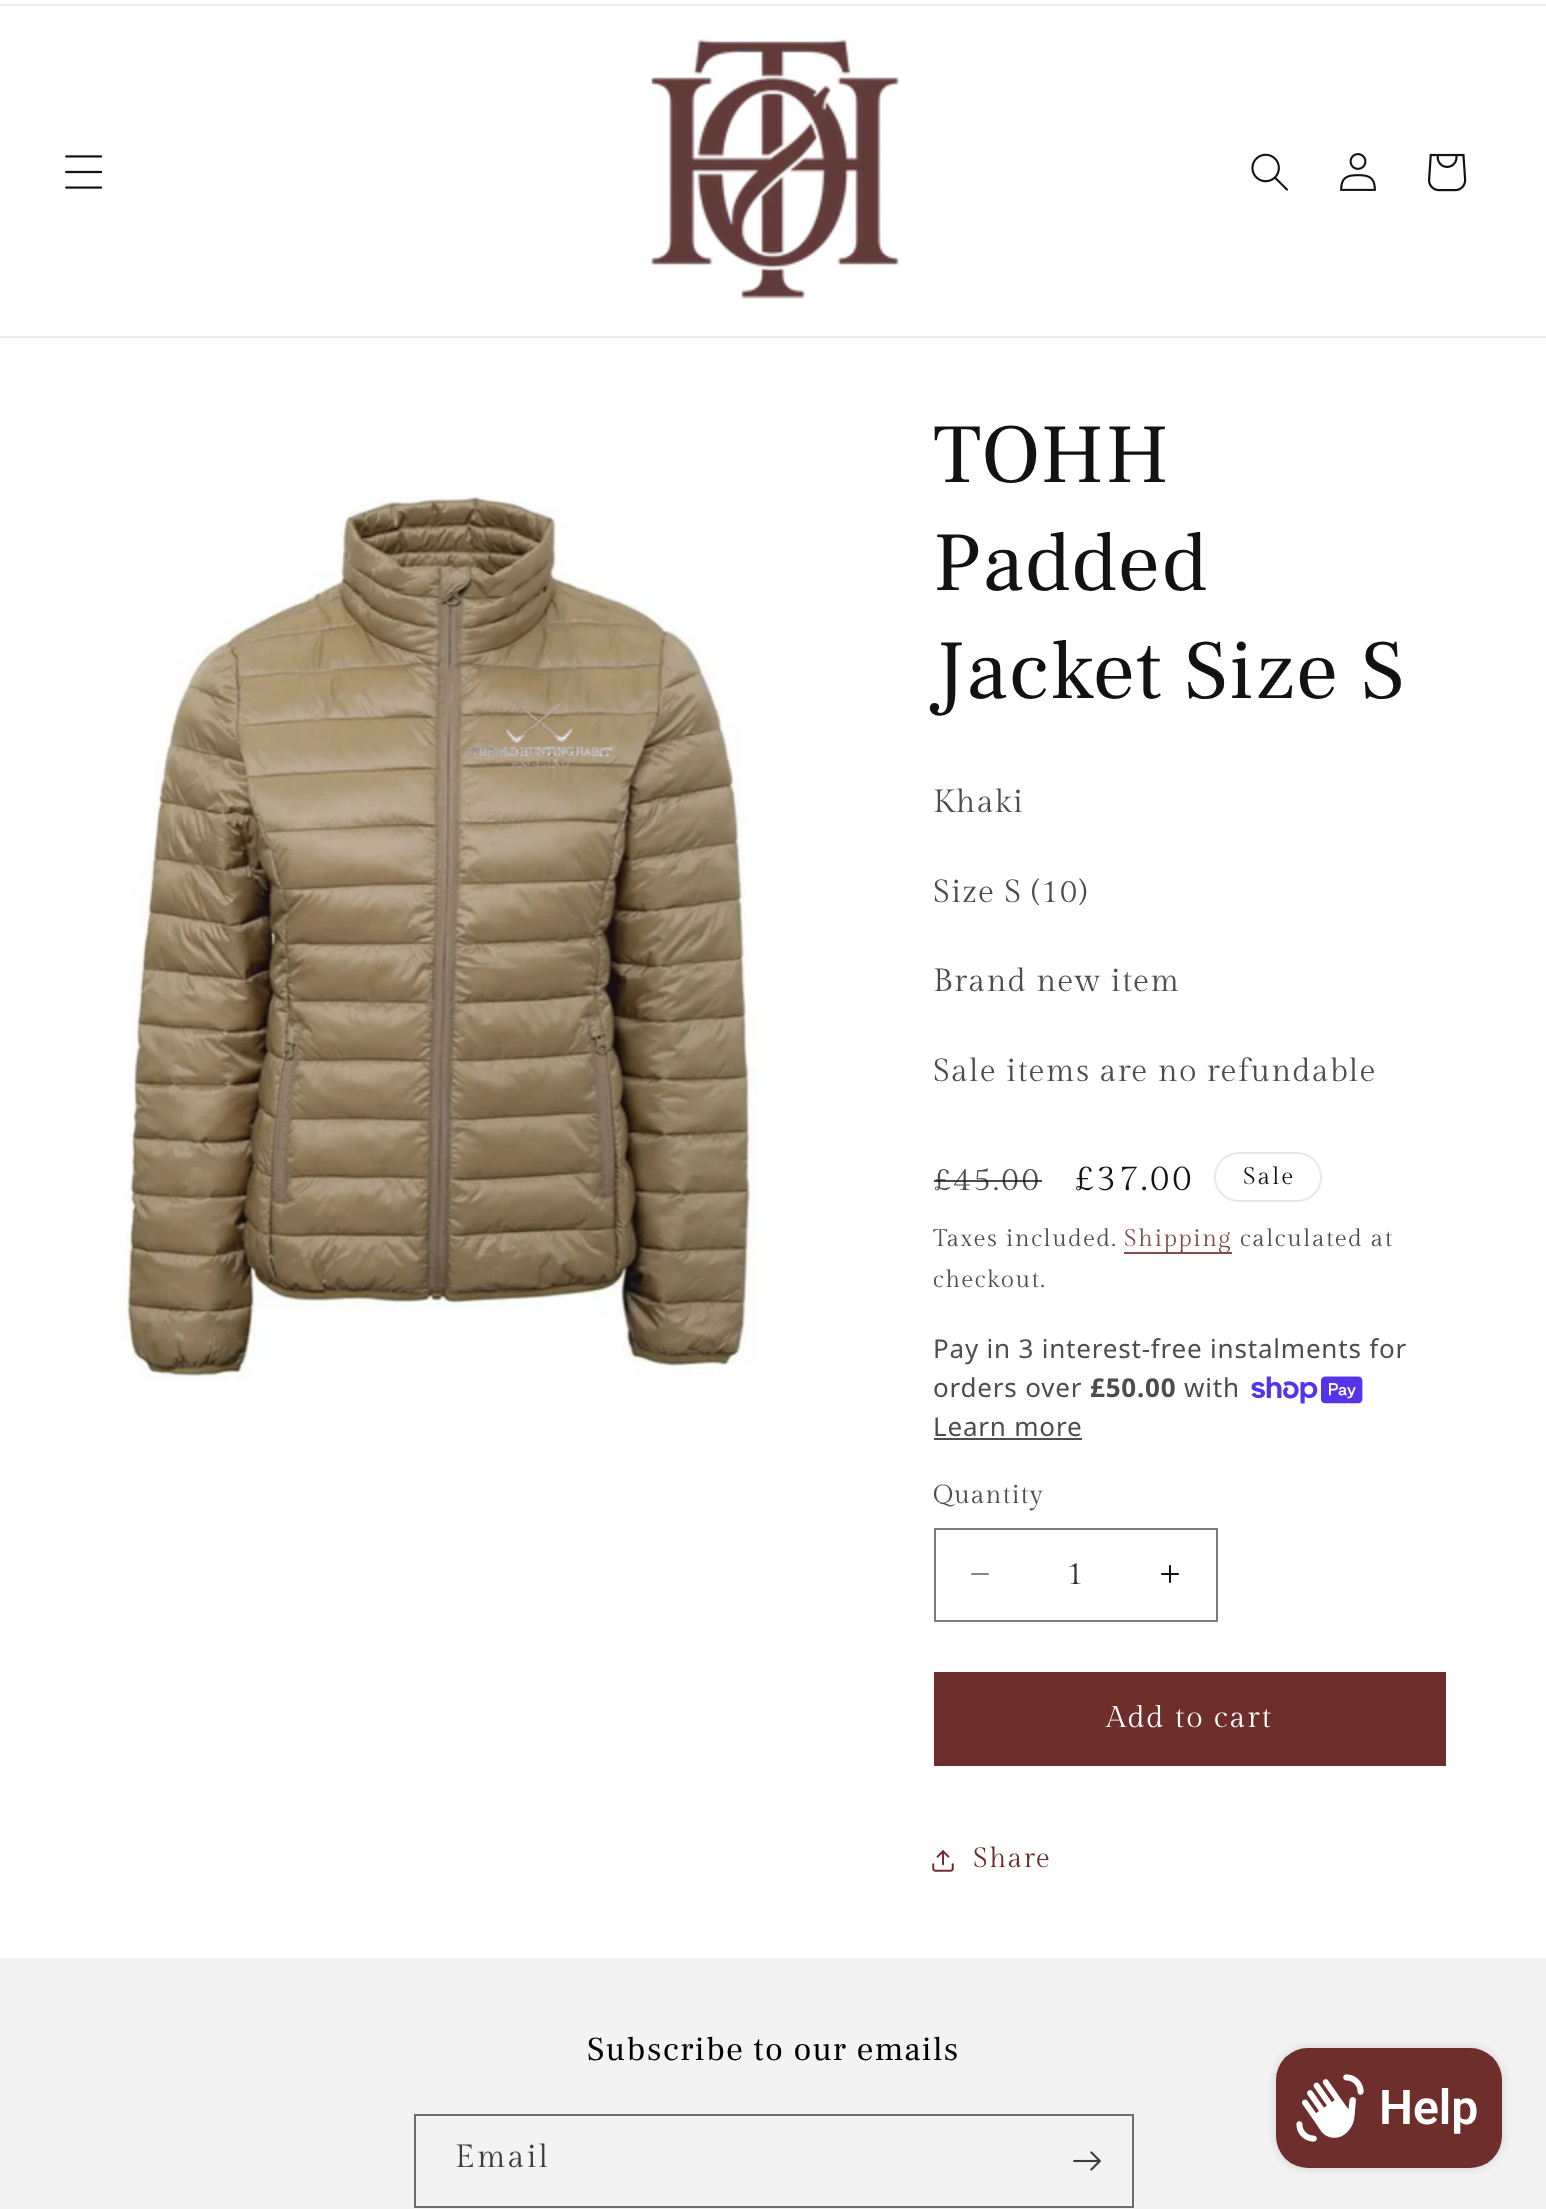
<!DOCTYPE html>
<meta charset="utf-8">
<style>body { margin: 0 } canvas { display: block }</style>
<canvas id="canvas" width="1546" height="2209"></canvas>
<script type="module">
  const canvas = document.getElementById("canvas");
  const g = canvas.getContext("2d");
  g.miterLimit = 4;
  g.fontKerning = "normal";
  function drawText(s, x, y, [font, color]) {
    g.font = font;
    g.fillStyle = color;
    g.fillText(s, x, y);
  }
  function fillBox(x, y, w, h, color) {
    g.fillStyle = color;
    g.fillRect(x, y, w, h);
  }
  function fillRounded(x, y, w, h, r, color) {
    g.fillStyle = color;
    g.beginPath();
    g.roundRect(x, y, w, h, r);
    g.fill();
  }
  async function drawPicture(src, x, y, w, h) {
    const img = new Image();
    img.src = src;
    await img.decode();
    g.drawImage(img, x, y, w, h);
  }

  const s1 = ["84px Frank Ruhl Libre", "#121212"];
  const s2 = ["32px Gilda Display", "#4D4D4D"];
  const s3 = ["36px Gilda Display", "#121212"];
  const s4 = ["24px Gilda Display", "#121212"];
  const s5 = ["24px Gilda Display", "#4D4D4D"];
  const s6 = ["24px Gilda Display", "#834D4B"];
  const s7 = ["26px Noto Sans", "#4D4D4D"];
  const s8 = ["bold 26px Noto Sans", "#4D4D4D"];
  const s9 = ["26px Gilda Display", "#4D4D4D"];
  const s10 = ["32px Gilda Display", "#363636"];
  const s11 = ["30px Gilda Display", "#FFFFFF"];
  const s12 = ["28px Gilda Display", "#6E2F2C"];
  const s13 = ["33.6px Frank Ruhl Libre", "#000000"];
  const s14 = ["32px Gilda Display", "#3D3D3D"];
  const s15 = ["600 48px Roboto", "#FFFFFF"];

  fillBox(0, 0, 1546, 2209, "#FFFFFF");
  fillBox(0, 4, 1546, 2, "#ECECEC");
  fillBox(0, 336, 1546, 2, "#ECECEC");
  await drawPicture("pic1.png", 65, 155, 38, 34);
  await drawPicture("pic2.png", 651, 39, 248, 260);
  await drawPicture("pic3.png", 1251, 153, 37, 38);
  await drawPicture("pic4.png", 1340, 153, 36, 38);
  await drawPicture("pic5.png", 1428, 153, 39, 39);
  await drawPicture("pic6.png", 119, 495, 645, 885);
  g.letterSpacing = "1.25px";
  drawText("TOHH", 933, 482, s1);
  drawText("Padded", 933, 590, s1);
  drawText("Jacket Size S", 933, 698, s1);
  g.letterSpacing = "1.2px";
  drawText("Khaki", 933, 812, s2);
  drawText("Size S (10)", 933, 902, s2);
  drawText("Brand new item", 933, 991, s2);
  drawText("Sale items are no refundable", 933, 1081, s2);
  g.letterSpacing = "2.5px";
  drawText("£45.00", 933, 1190, s2);
  fillBox(934, 1180, 108, 2, "rgba(18, 18, 18, 0.75)");
  drawText("£37.00", 1074, 1190, s3);
  g.beginPath();
  g.roundRect(1215, 1153, 106, 48, 24);
  g.strokeStyle = "#E7E7E7";
  g.lineWidth = 2;
  g.stroke();
  g.letterSpacing = "2px";
  drawText("Sale", 1243, 1184, s4);
  g.letterSpacing = "1.4px";
  drawText("Taxes included.", 933, 1246, s5);
  fillBox(1124, 1252, 108, 2, "#844E4C");
  drawText("Shipping", 1124, 1246, s6);
  drawText("calculated at", 1240, 1246, s5);
  drawText("checkout.", 933, 1287, s5);
  g.letterSpacing = "0.8px";
  drawText("Pay in 3 interest-free instalments for", 933, 1358, s7);
  drawText("orders over", 933, 1397, s7);
  drawText("£50.00", 1090, 1397, s8);
  drawText("with", 1184, 1397, s7);
  await drawPicture("pic7.png", 1251, 1376, 112, 28);
  drawText("Learn more", 933, 1436, s7);
  fillBox(934, 1438, 148, 2, "#4D4D4D");
  drawText("Quantity", 933, 1503, s9);
  await drawPicture("pic8.png", 971, 1573, 18, 2);
  await drawPicture("pic9.png", 1161, 1565, 18, 18);
  g.strokeStyle = "#7D7D7D";
  g.strokeRect(935, 1529, 282, 92);
  g.letterSpacing = "0px";
  drawText("1", 1066, 1584, s10);
  fillBox(934, 1672, 512, 94, "#6E2F2C");
  g.letterSpacing = "2px";
  drawText("Add to cart", 1106, 1727, s11);
  await drawPicture("pic10.png", 932, 1850, 22, 22);
  g.letterSpacing = "1.2px";
  drawText("Share", 973, 1867, s12);
  fillBox(0, 1958, 1546, 251, "#F3F3F3");
  g.letterSpacing = "1.25px";
  drawText("Subscribe to our emails", 587, 2060, s13);
  g.strokeStyle = "#6D6D6D";
  g.strokeRect(415, 2115, 718, 92);
  g.letterSpacing = "2px";
  drawText("Email", 455, 2167, s14);
  await drawPicture("pic11.png", 1073, 2151, 28, 20);
  g.fillStyle = "rgba(0, 0, 0, 0.15)";
  g.filter = "blur(5px)";
  g.beginPath();
  g.roundRect(1276, 2048, 226, 120, 32);
  g.fill();
  g.filter = "none";
  fillRounded(1276, 2048, 226, 120, 32, "#6E2F2C");
  await drawPicture("pic12.png", 1296, 2074, 68, 68);
  g.letterSpacing = "0px";
  drawText("Help", 1379, 2124, s15);
</script>
